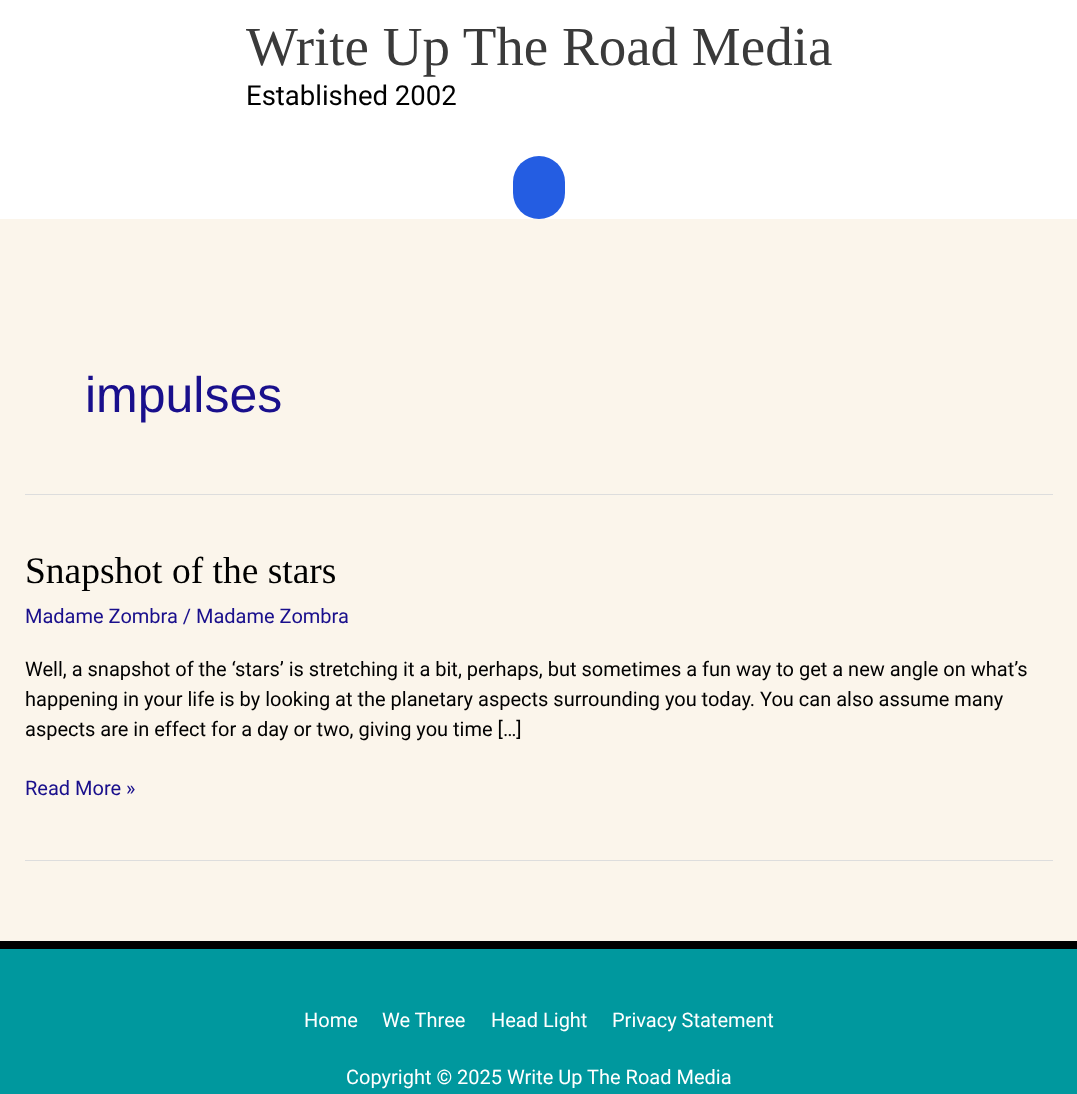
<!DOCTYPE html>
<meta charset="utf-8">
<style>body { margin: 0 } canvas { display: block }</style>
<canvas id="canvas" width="1077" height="1094"></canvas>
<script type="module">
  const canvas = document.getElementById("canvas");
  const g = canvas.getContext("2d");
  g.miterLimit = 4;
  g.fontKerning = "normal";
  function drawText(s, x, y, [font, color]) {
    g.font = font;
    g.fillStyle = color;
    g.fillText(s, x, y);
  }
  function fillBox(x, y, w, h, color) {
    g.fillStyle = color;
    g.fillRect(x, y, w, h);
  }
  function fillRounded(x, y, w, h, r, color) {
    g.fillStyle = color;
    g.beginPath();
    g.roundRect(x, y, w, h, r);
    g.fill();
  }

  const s1 = ["55px Liberation Serif", "#3A3A3A"];
  const s2 = ["27.5px Roboto", "#000000"];
  const s3 = ["50px Liberation Sans", "#190F8C"];
  const s4 = ["37.5px Liberation Serif", "#000000"];
  const s5 = ["20px Roboto", "#190F8C"];
  const s6 = ["20px Roboto", "#000000"];
  const s7 = ["20px Roboto", "#FFFFFF"];

  fillBox(0, 0, 1077, 1094, "#FBF5EB");
  fillBox(0, 0, 1077, 219, "#FFFFFF");
  drawText("Write Up The Road Media", 246, 65, s1);
  drawText("Established 2002", 246, 105, s2);
  fillRounded(513, 156, 52, 63, 26, "#245DE2");
  fillBox(25, 494, 1028, 1, "#DDDDDD");
  drawText("impulses", 85, 412, s3);
  fillBox(25, 860, 1028, 1, "#DDDDDD");
  drawText("Snapshot of the stars", 25, 583, s4);
  drawText("Madame Zombra / Madame Zombra", 25, 623, s5);
  drawText("Well, a snapshot of the ‘stars’ is stretching it a bit, perhaps, but sometimes a fun way to get a new angle on what’s", 25, 676, s6);
  drawText("happening in your life is by looking at the planetary aspects surrounding you today. You can also assume many", 25, 706, s6);
  drawText("aspects are in effect for a day or two, giving you time […]", 25, 736, s6);
  drawText("Read More »", 25, 795, s5);
  fillBox(0, 941, 1077, 8, "#000000");
  fillBox(0, 949, 1077, 145, "#00989E");
  drawText("Home", 304, 1027, s7);
  drawText("We Three", 382, 1027, s7);
  drawText("Head Light", 491, 1027, s7);
  drawText("Privacy Statement", 612, 1027, s7);
  drawText("Copyright © 2025 Write Up The Road Media", 346, 1084, s7);
</script>
